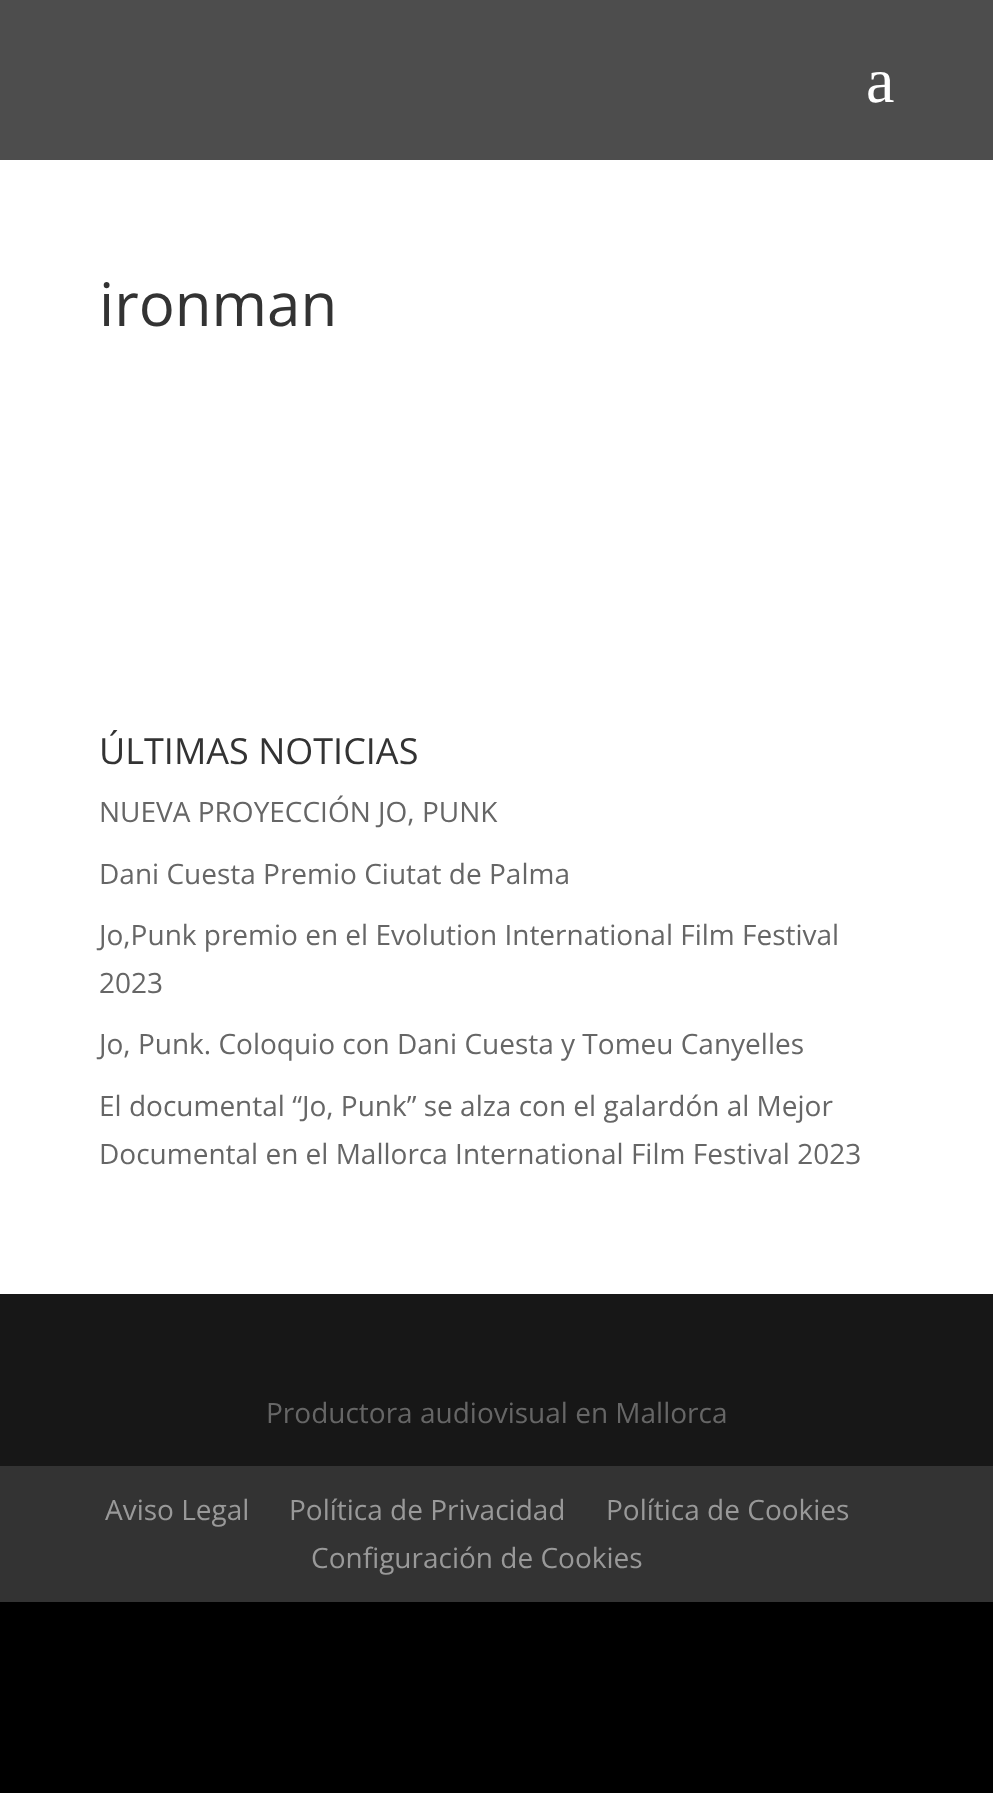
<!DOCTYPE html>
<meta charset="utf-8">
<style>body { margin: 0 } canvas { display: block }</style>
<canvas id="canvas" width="993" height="1793"></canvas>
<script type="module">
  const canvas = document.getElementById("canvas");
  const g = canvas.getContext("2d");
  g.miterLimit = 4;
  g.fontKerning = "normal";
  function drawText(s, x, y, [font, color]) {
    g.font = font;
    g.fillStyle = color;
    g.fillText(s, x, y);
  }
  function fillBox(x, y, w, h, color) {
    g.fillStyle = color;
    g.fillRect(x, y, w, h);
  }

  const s1 = ["64px Liberation Serif", "#FFFFFF"];
  const s2 = ["60px Open Sans", "#333333"];
  const s3 = ["36px Open Sans", "#333333"];
  const s4 = ["28px Open Sans", "#666666"];
  const s5 = ["28px Open Sans", "#999999"];

  fillBox(0, 0, 993, 1793, "#000000");
  fillBox(0, 0, 993, 160, "#4D4D4D");
  drawText("a", 866, 102, s1);
  fillBox(0, 160, 993, 1134, "#FFFFFF");
  drawText("ironman", 99, 326, s2);
  drawText("ÚLTIMAS NOTICIAS", 99, 764, s3);
  drawText("NUEVA PROYECCIÓN JO, PUNK", 99, 822, s4);
  drawText("Dani Cuesta Premio Ciutat de Palma", 99, 884, s4);
  drawText("Jo,Punk premio en el Evolution International Film Festival", 99, 945, s4);
  drawText("2023", 99, 993, s4);
  drawText("Jo, Punk. Coloquio con Dani Cuesta y Tomeu Canyelles", 99, 1054, s4);
  drawText("El documental “Jo, Punk” se alza con el galardón al Mejor", 99, 1116, s4);
  drawText("Documental en el Mallorca International Film Festival 2023", 99, 1164, s4);
  fillBox(0, 1294, 993, 172, "#171717");
  drawText("Productora audiovisual en Mallorca", 266, 1423, s4);
  fillBox(0, 1466, 993, 136, "#333333");
  drawText("Aviso Legal", 105, 1520, s5);
  drawText("Política de Privacidad", 289, 1520, s5);
  drawText("Política de Cookies", 606, 1520, s5);
  drawText("Configuración de Cookies", 311, 1568, s5);
</script>
